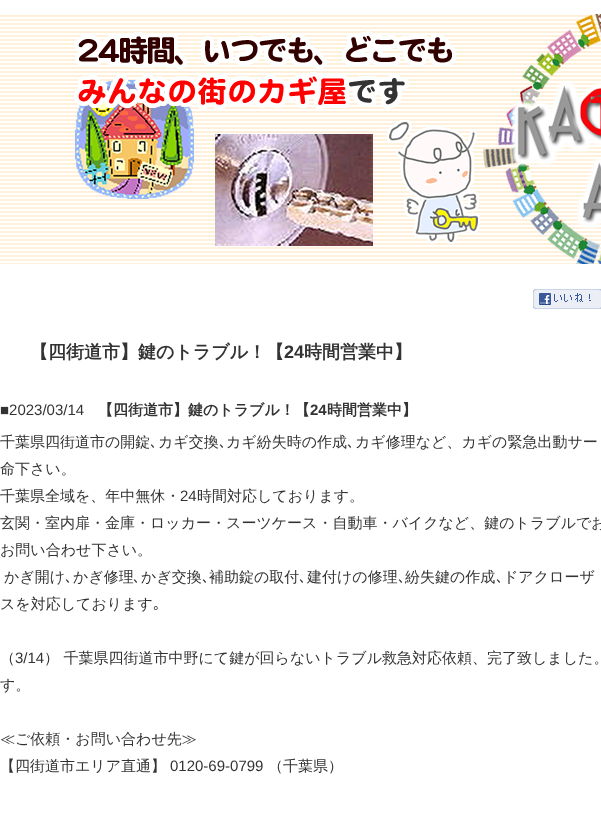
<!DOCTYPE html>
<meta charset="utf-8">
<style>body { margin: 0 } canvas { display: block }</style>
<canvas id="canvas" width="601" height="816"></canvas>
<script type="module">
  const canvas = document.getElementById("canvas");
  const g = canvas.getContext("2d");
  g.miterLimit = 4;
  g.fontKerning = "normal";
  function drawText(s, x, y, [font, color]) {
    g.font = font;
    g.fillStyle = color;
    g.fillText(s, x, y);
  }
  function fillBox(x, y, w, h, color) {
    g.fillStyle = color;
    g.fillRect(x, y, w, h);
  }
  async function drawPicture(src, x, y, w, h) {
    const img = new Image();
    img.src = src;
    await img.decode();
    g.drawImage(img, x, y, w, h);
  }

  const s1 = ["bold 18px WenQuanYi Zen Hei", "#333333"];
  const s2 = ["bold 18px Liberation Sans", "#333333"];
  const s3 = ["15px Liberation Sans", "#333333"];
  const s4 = ["bold 15px WenQuanYi Zen Hei", "#333333"];
  const s5 = ["bold 15px Liberation Sans", "#333333"];
  const s6 = ["500 15px WenQuanYi Zen Hei", "#333333"];
  const s7 = ["15px IPAPGothic", "#333333"];

  fillBox(0, 0, 601, 816, "#FFFFFF");
  await drawPicture("pic1.png", 0, 14, 601, 250);
  await drawPicture("pic2.png", 533, 289, 68, 20);
  drawText("【四街道市】鍵のトラブル！【", 30, 358, s1);
  drawText("24", 284, 358, s2);
  drawText("時間営業中】", 304, 358, s1);
  drawText("■2023/03/14", 0, 415, s3);
  drawText("【四街道市】鍵のトラブル！【", 98, 415, s4);
  drawText("24", 310, 415, s5);
  drawText("時間営業中】", 327, 415, s4);
  drawText("千葉県四街道市の開錠", 0, 447, s6);
  drawText("､", 150, 447, s7);
  drawText("カギ交換", 158, 447, s6);
  drawText("､", 219, 447, s7);
  drawText("カギ紛失時の作成", 226, 447, s6);
  drawText("､", 347, 447, s7);
  drawText("カギ修理など、カギの緊急出動サー", 355, 447, s6);
  drawText("命下さい。", 0, 474, s6);
  drawText("千葉県全域を、年中無休・", 0, 501, s6);
  drawText("24", 180, 501, s3);
  drawText("時間対応しております。", 197, 501, s6);
  drawText("玄関・室内扉・金庫・ロッカー・スーツケース・自動車・バイクなど、鍵のトラブルでお", 0, 528, s6);
  drawText("お問い合わせ下さい。", 0, 555, s6);
  drawText("かぎ開け", 4, 582, s6);
  drawText("､", 65, 582, s7);
  drawText("かぎ修理", 73, 582, s6);
  drawText("､", 133, 582, s7);
  drawText("かぎ交換", 141, 582, s6);
  drawText("､", 202, 582, s7);
  drawText("補助錠の取付", 209, 582, s6);
  drawText("､", 299, 582, s7);
  drawText("建付けの修理", 307, 582, s6);
  drawText("､", 398, 582, s7);
  drawText("紛失鍵の作成", 405, 582, s6);
  drawText("､", 496, 582, s7);
  drawText("ドアクローザ", 503, 582, s6);
  drawText("スを対応しております", 0, 609, s6);
  drawText("｡", 153, 609, s7);
  drawText("（", 0, 663, s6);
  drawText("3/14", 15, 663, s3);
  drawText("） 千葉県四街道市中野にて鍵が回らないトラブル救急対応依頼、完了致しました。", 44, 663, s6);
  drawText("す。", 0, 690, s6);
  drawText("≪ご依頼・お問い合わせ先≫", 0, 744, s6);
  drawText("【四街道市エリア直通】", 0, 771, s6);
  drawText("0120-69-0799", 170, 771, s3);
  drawText("（千葉県）", 268, 771, s6);
</script>
